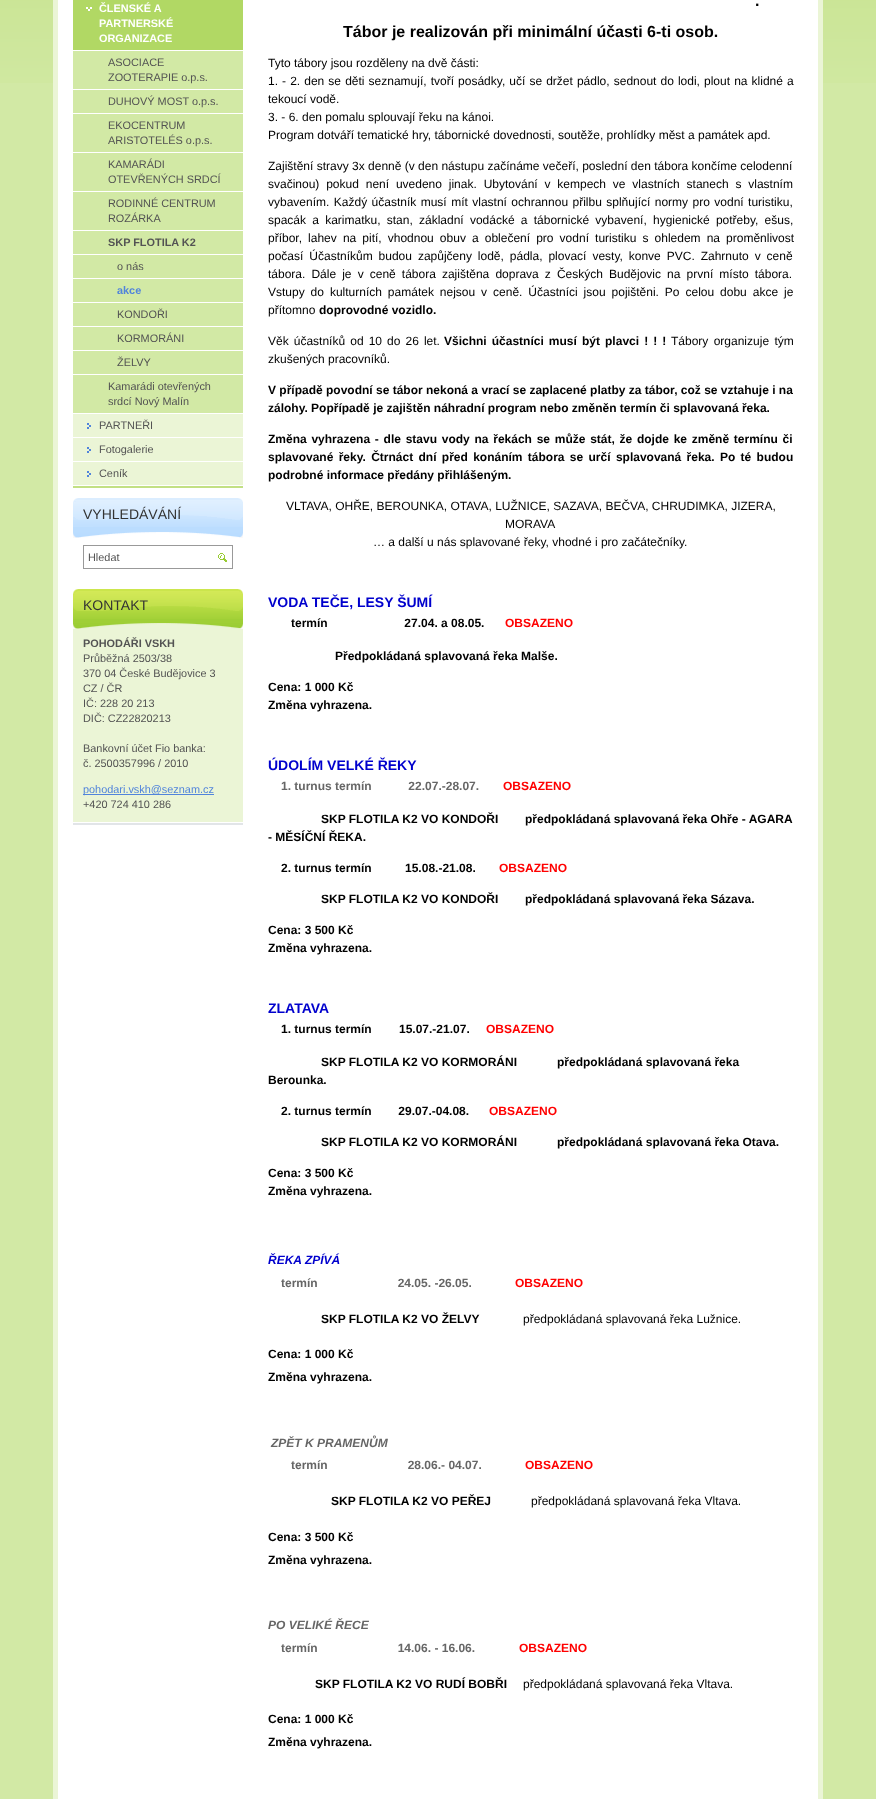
<!DOCTYPE html>
<meta charset="utf-8">
<style>body { margin: 0 } canvas { display: block }</style>
<canvas id="canvas" width="876" height="1799"></canvas>
<script type="module">
  const canvas = document.getElementById("canvas");
  const g = canvas.getContext("2d");
  g.miterLimit = 4;
  g.fontKerning = "normal";
  function drawText(s, x, y, [font, color]) {
    g.font = font;
    g.fillStyle = color;
    g.fillText(s, x, y);
  }
  function fillBox(x, y, w, h, color) {
    g.fillStyle = color;
    g.fillRect(x, y, w, h);
  }
  async function drawPicture(src, x, y, w, h) {
    const img = new Image();
    img.src = src;
    await img.decode();
    g.drawImage(img, x, y, w, h);
  }

  const s1 = ["bold 10.9px Liberation Sans", "#FFFFFF"];
  const s2 = ["10.9px Liberation Sans", "#535353"];
  const s3 = ["bold 10.9px Liberation Sans", "#535353"];
  const s4 = ["bold 10.9px Liberation Sans", "#5184DB"];
  const s5 = ["14px Liberation Sans", "#333333"];
  const s6 = ["10.9px Liberation Sans", "#5184DB"];
  const s7 = ["bold 16px Liberation Sans", "#000000"];
  const s8 = ["12px Liberation Sans", "#000000"];
  const s9 = ["bold 12px Liberation Sans", "#000000"];
  const s10 = ["bold 14px Liberation Sans", "#0000CD"];
  const s11 = ["bold 12px Liberation Sans", "#FF0000"];
  const s12 = ["bold 12px Liberation Sans", "#666666"];
  const s13 = ["italic bold 12px Liberation Sans", "#0000CD"];
  const s14 = ["italic bold 12px Liberation Sans", "#666666"];

  fillBox(0, 0, 876, 1799, "#D2E9A5");
  await drawPicture("pic1.png", 0, 0, 876, 83);
  fillBox(58, 0, 760, 1799, "#FFFFFF");
  fillBox(818, 0, 5, 1799, "#EBF5D6");
  fillBox(53, 0, 5, 1799, "#EBF5D6");
  fillBox(73, 486, 170, 2, "#C2E084");
  fillBox(73, 414, 170, 71, "#EBF5D6");
  fillBox(73, 0, 170, 50, "#B1D864");
  await drawPicture("pic2.png", 86, 7, 6, 4);
  drawText("ČLENSKÉ A", 99, 12, s1);
  drawText("PARTNERSKÉ", 99, 27, s1);
  drawText("ORGANIZACE", 99, 42, s1);
  fillBox(73, 51, 170, 362, "#D2E9A5");
  fillBox(73, 89, 170, 1, "#FFFFFF");
  drawText("ASOCIACE", 108, 66, s2);
  drawText("ZOOTERAPIE o.p.s.", 108, 81, s2);
  fillBox(73, 113, 170, 1, "#FFFFFF");
  drawText("DUHOVÝ MOST o.p.s.", 108, 105, s2);
  fillBox(73, 152, 170, 1, "#FFFFFF");
  drawText("EKOCENTRUM", 108, 129, s2);
  drawText("ARISTOTELÉS o.p.s.", 108, 144, s2);
  fillBox(73, 191, 170, 1, "#FFFFFF");
  drawText("KAMARÁDI", 108, 168, s2);
  drawText("OTEVŘENÝCH SRDCÍ", 108, 183, s2);
  fillBox(73, 230, 170, 1, "#FFFFFF");
  drawText("RODINNÉ CENTRUM", 108, 207, s2);
  drawText("ROZÁRKA", 108, 222, s2);
  fillBox(73, 254, 170, 1, "#FFFFFF");
  drawText("SKP FLOTILA K2", 108, 246, s3);
  fillBox(73, 278, 170, 1, "#FFFFFF");
  drawText("o nás", 117, 270, s2);
  fillBox(73, 302, 170, 1, "#FFFFFF");
  drawText("akce", 117, 294, s4);
  fillBox(73, 326, 170, 1, "#FFFFFF");
  drawText("KONDOŘI", 117, 318, s2);
  fillBox(73, 350, 170, 1, "#FFFFFF");
  drawText("KORMORÁNI", 117, 342, s2);
  fillBox(73, 374, 170, 1, "#FFFFFF");
  drawText("ŽELVY", 117, 366, s2);
  drawText("Kamarádi otevřených", 108, 390, s2);
  drawText("srdcí Nový Malín", 108, 405, s2);
  await drawPicture("pic3.png", 87, 423, 4, 6);
  fillBox(73, 437, 170, 1, "#FFFFFF");
  drawText("PARTNEŘI", 99, 429, s2);
  await drawPicture("pic3.png", 87, 447, 4, 6);
  fillBox(73, 461, 170, 1, "#FFFFFF");
  drawText("Fotogalerie", 99, 453, s2);
  await drawPicture("pic3.png", 87, 471, 4, 6);
  drawText("Ceník", 99, 477, s2);
  fillBox(73, 527, 170, 6, "#BBDDFF");
  await drawPicture("pic4.png", 73, 498, 170, 29);
  await drawPicture("pic5.png", 73, 532, 170, 6);
  drawText("VYHLEDÁVÁNÍ", 83, 519, s5);
  g.strokeStyle = "#999999";
  g.strokeRect(83.5, 545.5, 149, 23);
  drawText("Hledat", 88, 561, s2);
  await drawPicture("pic6.png", 218, 553, 9, 9);
  fillBox(73, 823, 170, 2, "#E2E5E8");
  fillBox(73, 629, 170, 193, "#EBF5D6");
  fillBox(73, 619, 170, 5, "#9FCF36");
  await drawPicture("pic7.png", 73, 589, 170, 30);
  await drawPicture("pic8.png", 73, 623, 170, 6);
  drawText("KONTAKT", 83, 610, s5);
  drawText("POHODÁŘI VSKH", 83, 647, s3);
  drawText("Průběžná 2503/38", 83, 662, s2);
  drawText("370 04 České Budějovice 3", 83, 677, s2);
  drawText("CZ / ČR", 83, 692, s2);
  drawText("IČ: 228 20 213", 83, 707, s2);
  drawText("DIČ: CZ22820213", 83, 722, s2);
  drawText("Bankovní účet Fio banka:", 83, 752, s2);
  drawText("č. 2500357996 / 2010", 83, 767, s2);
  fillBox(83, 794, 131, 1, "#5184DB");
  drawText("pohodari.vskh@seznam.cz", 83, 793, s6);
  drawText("+420 724 410 286", 83, 808, s2);
  drawText(".", 755, 6, s7);
  drawText("Tábor je realizován při minimální účasti 6-ti osob.", 343, 37, s7);
  drawText("Tyto tábory jsou rozděleny na dvě části:", 268, 67, s8);
  g.wordSpacing = "0.75px";
  drawText("1. - 2. den se děti seznamují, tvoří posádky, učí se držet pádlo, sednout do lodi, plout na klidné a", 268, 85, s8);
  g.wordSpacing = "0px";
  drawText("tekoucí vodě.", 268, 103, s8);
  drawText("3. - 6. den pomalu splouvají řeku na kánoi.", 268, 121, s8);
  drawText("Program dotváří tematické hry, tábornické dovednosti, soutěže, prohlídky měst a památek apd.", 268, 139, s8);
  drawText("Zajištění stravy 3x denně (v den nástupu začínáme večeří, poslední den tábora končíme celodenní", 268, 170, s8);
  g.wordSpacing = "3.5px";
  drawText("svačinou) pokud není uvedeno jinak. Ubytování v kempech ve vlastních stanech s vlastním", 268, 188, s8);
  g.wordSpacing = "1.1px";
  drawText("vybavením. Každý účastník musí mít vlastní ochrannou přilbu splňující normy pro vodní turistiku,", 268, 206, s8);
  g.wordSpacing = "2.9px";
  drawText("spacák a karimatku, stan, základní vodácké a tábornické vybavení, hygienické potřeby, ešus,", 268, 224, s8);
  g.wordSpacing = "2.75px";
  drawText("příbor, lahev na pití, vhodnou obuv a oblečení pro vodní turistiku s ohledem na proměnlivost", 268, 242, s8);
  g.wordSpacing = "2.6px";
  drawText("počasí Účastníkům budou zapůjčeny lodě, pádla, plovací vesty, konve PVC. Zahrnuto v ceně", 268, 260, s8);
  g.wordSpacing = "2.75px";
  drawText("tábora. Dále je v ceně tábora zajištěna doprava z Českých Budějovic na první místo tábora.", 268, 278, s8);
  g.wordSpacing = "2.6px";
  drawText("Vstupy do kulturních památek nejsou v ceně. Účastníci jsou pojištěni. Po celou dobu akce je", 268, 296, s8);
  g.wordSpacing = "0px";
  drawText("přítomno", 268, 314, s8);
  drawText("doprovodné vozidlo.", 319, 314, s9);
  g.wordSpacing = "1.75px";
  drawText("Věk účastníků od 10 do 26 let.", 268, 345, s8);
  drawText("Všichni účastníci musí být plavci ! ! !", 444, 345, s9);
  g.wordSpacing = "2px";
  drawText("Tábory organizuje tým", 671, 345, s8);
  g.wordSpacing = "0px";
  drawText("zkušených pracovníků.", 268, 363, s8);
  drawText("V případě povodní se tábor nekoná a vrací se zaplacené platby za tábor, což se vztahuje i na", 268, 394, s9);
  drawText("zálohy. Popřípadě je zajištěn náhradní program nebo změněn termín či splavovaná řeka.", 268, 412, s9);
  g.wordSpacing = "1.4px";
  drawText("Změna vyhrazena - dle stavu vody na řekách se může stát, že dojde ke změně termínu či", 268, 443, s9);
  g.wordSpacing = "2px";
  drawText("splavované řeky. Čtrnáct dní před konáním tábora se určí splavovaná řeka. Po té budou", 268, 461, s9);
  g.wordSpacing = "0px";
  drawText("podrobné informace předány přihlášeným.", 268, 479, s9);
  drawText("VLTAVA, OHŘE, BEROUNKA, OTAVA, LUŽNICE, SAZAVA, BEČVA, CHRUDIMKA, JIZERA,", 286, 510, s8);
  drawText("MORAVA", 505, 528, s8);
  drawText("… a další u nás splavované řeky, vhodné i pro začátečníky.", 373, 546, s8);
  drawText("VODA TEČE, LESY ŠUMÍ", 268, 607, s10);
  drawText("termín                       27.04. a 08.05.", 291, 627, s9);
  drawText("OBSAZENO", 505, 627, s11);
  drawText("Předpokládaná splavovaná řeka Malše.", 335, 660, s9);
  drawText("Cena: 1 000 Kč", 268, 691, s9);
  drawText("Změna vyhrazena.", 268, 709, s9);
  drawText("ÚDOLÍM VELKÉ ŘEKY", 268, 770, s10);
  drawText("1. turnus termín           22.07.-28.07.", 281, 790, s12);
  drawText("OBSAZENO", 503, 790, s11);
  drawText("SKP FLOTILA K2 VO KONDOŘI", 321, 823, s9);
  drawText("předpokládaná splavovaná řeka Ohře - AGARA", 525, 823, s9);
  drawText("- MĚSÍČNÍ ŘEKA.", 268, 841, s9);
  drawText("2. turnus termín          15.08.-21.08.", 281, 872, s9);
  drawText("OBSAZENO", 499, 872, s11);
  drawText("SKP FLOTILA K2 VO KONDOŘI        předpokládaná splavovaná řeka Sázava.", 321, 903, s9);
  drawText("Cena: 3 500 Kč", 268, 934, s9);
  drawText("Změna vyhrazena.", 268, 952, s9);
  drawText("ZLATAVA", 268, 1013, s10);
  drawText("1. turnus termín", 281, 1033, s9);
  drawText("15.07.-21.07.", 399, 1033, s9);
  drawText("OBSAZENO", 486, 1033, s11);
  drawText("SKP FLOTILA K2 VO KORMORÁNI", 321, 1066, s9);
  drawText("předpokládaná splavovaná řeka", 557, 1066, s9);
  drawText("Berounka.", 268, 1084, s9);
  drawText("2. turnus termín        29.07.-04.08.", 281, 1115, s9);
  drawText("OBSAZENO", 489, 1115, s11);
  drawText("SKP FLOTILA K2 VO KORMORÁNI            předpokládaná splavovaná řeka Otava.", 321, 1146, s9);
  drawText("Cena: 3 500 Kč", 268, 1177, s9);
  drawText("Změna vyhrazena.", 268, 1195, s9);
  drawText("ŘEKA ZPÍVÁ", 268, 1264, s13);
  drawText("termín                        24.05. -26.05.", 281, 1287, s12);
  drawText("OBSAZENO", 515, 1287, s11);
  drawText("SKP FLOTILA K2 VO ŽELVY", 321, 1323, s9);
  drawText("předpokládaná splavovaná řeka Lužnice.", 523, 1323, s8);
  drawText("Cena: 1 000 Kč", 268, 1358, s9);
  drawText("Změna vyhrazena.", 268, 1381, s9);
  drawText("ZPĚT K PRAMENŮM", 271, 1447, s14);
  drawText("termín                        28.06.- 04.07.", 291, 1469, s12);
  drawText("OBSAZENO", 525, 1469, s11);
  drawText("SKP FLOTILA K2 VO PEŘEJ", 331, 1505, s9);
  drawText("předpokládaná splavovaná řeka Vltava.", 531, 1505, s8);
  drawText("Cena: 3 500 Kč", 268, 1541, s9);
  drawText("Změna vyhrazena.", 268, 1564, s9);
  drawText("PO VELIKÉ ŘECE", 268, 1629, s14);
  drawText("termín                        14.06. - 16.06.", 281, 1652, s12);
  drawText("OBSAZENO", 519, 1652, s11);
  drawText("SKP FLOTILA K2 VO RUDÍ BOBŘI", 315, 1688, s9);
  drawText("předpokládaná splavovaná řeka Vltava.", 523, 1688, s8);
  drawText("Cena: 1 000 Kč", 268, 1723, s9);
  drawText("Změna vyhrazena.", 268, 1746, s9);
</script>
